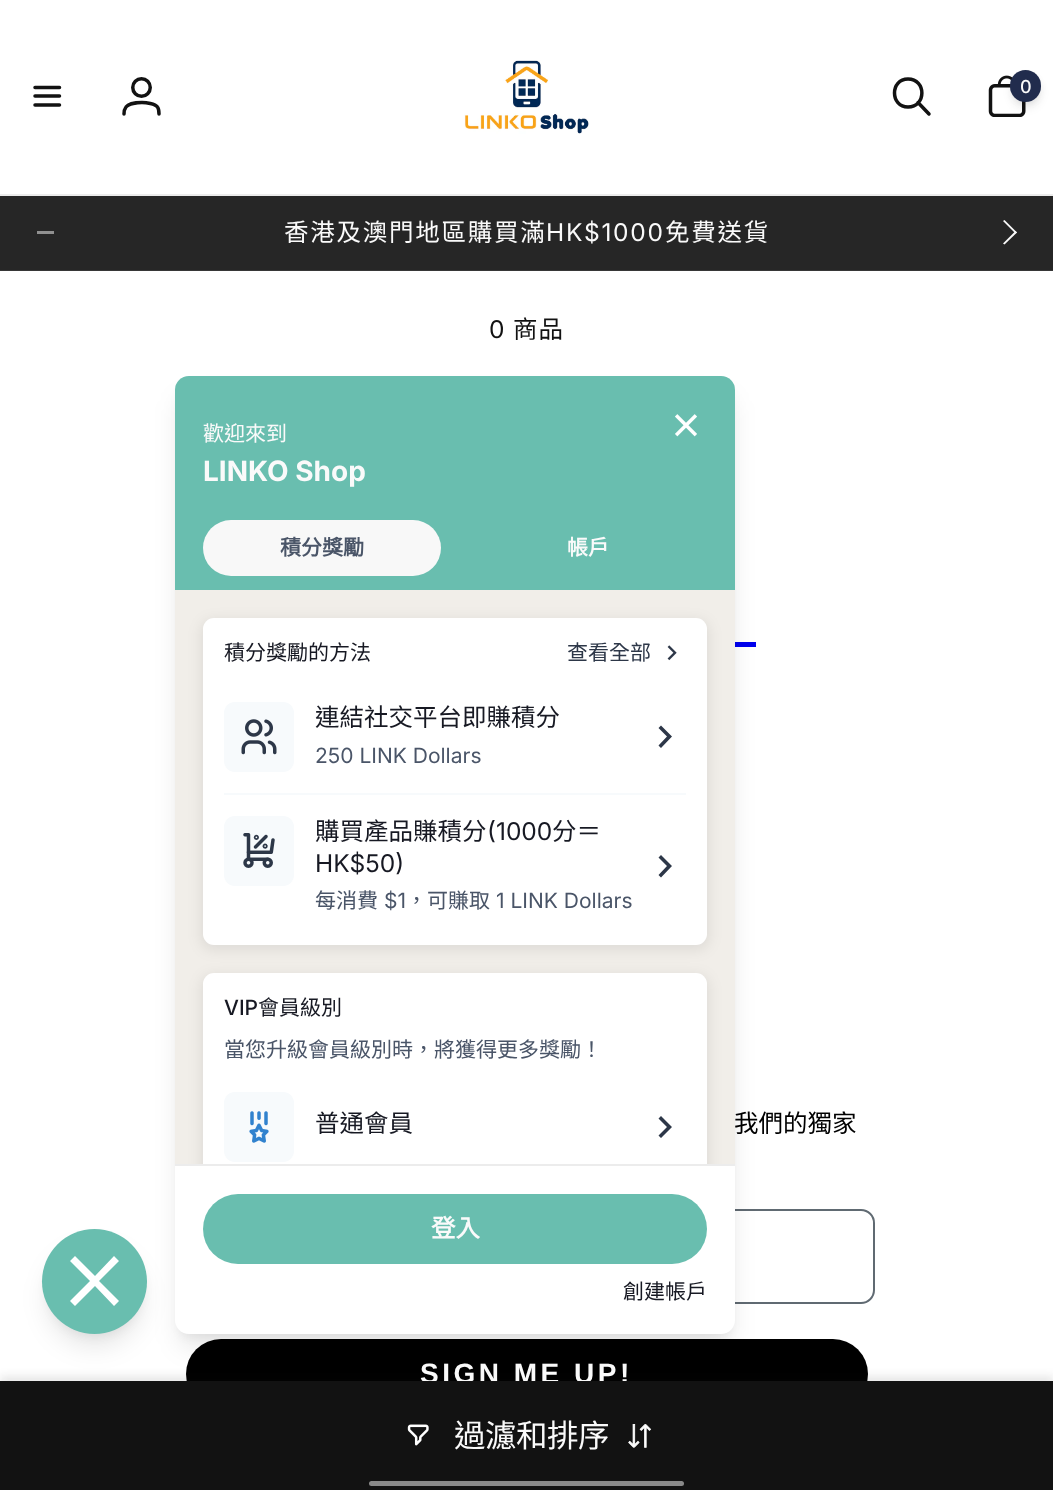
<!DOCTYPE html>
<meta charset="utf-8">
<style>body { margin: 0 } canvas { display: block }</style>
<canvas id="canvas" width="1053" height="1490"></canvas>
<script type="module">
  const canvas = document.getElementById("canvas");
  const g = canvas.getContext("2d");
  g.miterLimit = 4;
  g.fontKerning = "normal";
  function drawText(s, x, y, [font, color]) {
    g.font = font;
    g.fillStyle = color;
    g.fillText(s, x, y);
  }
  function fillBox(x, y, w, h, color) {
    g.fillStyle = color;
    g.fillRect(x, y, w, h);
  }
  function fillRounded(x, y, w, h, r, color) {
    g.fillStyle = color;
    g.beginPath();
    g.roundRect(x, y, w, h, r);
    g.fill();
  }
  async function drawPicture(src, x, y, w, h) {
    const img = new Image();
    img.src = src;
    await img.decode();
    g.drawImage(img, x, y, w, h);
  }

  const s1 = ["500 18px Inter", "#FAFAFA"];
  const s2 = ["24.5px Noto Sans CJK HK", "#FAFAFA"];
  const s3 = ["24.5px Inter", "#FAFAFA"];
  const s4 = ["24.5px Inter", "#121212"];
  const s5 = ["24.5px Noto Sans CJK HK", "#121212"];
  const s6 = ["bold 28px Liberation Sans", "#FAFAFA"];
  const s7 = ["31.5px Noto Sans CJK HK", "#FAFAFA"];
  const s8 = ["21px Noto Sans CJK HK", "#FAFAFA"];
  const s9 = ["bold 28px Inter", "#FAFAFA"];
  const s10 = ["bold 21px Noto Sans CJK HK", "#4A5568"];
  const s11 = ["bold 21px Noto Sans CJK HK", "#FAFAFA"];
  const s12 = ["21px Noto Sans CJK HK", "#171923"];
  const s13 = ["21px Noto Sans CJK HK", "#2D3748"];
  const s14 = ["24.5px Noto Sans CJK HK", "#171923"];
  const s15 = ["21px Inter", "#4A5568"];
  const s16 = ["24.5px Inter", "#171923"];
  const s17 = ["21px Noto Sans CJK HK", "#4A5568"];
  const s18 = ["500 21px Inter", "#171923"];
  const s19 = ["bold 24.5px Noto Sans CJK HK", "#FAFAFA"];
  const s20 = ["24.5px Noto Sans CJK HK", "#000000"];

  fillBox(0, 0, 1053, 1490, "#FFFFFF");
  fillBox(0, 194, 1053, 2, "#ECECEC");
  g.beginPath();
  g.moveTo(35, 87.5);
  g.lineTo(59.5, 87.5);
  g.moveTo(35, 96);
  g.lineTo(59.5, 96);
  g.moveTo(35, 105);
  g.lineTo(59.5, 105);
  g.strokeStyle = "#121212";
  g.lineWidth = 3.5;
  g.lineCap = "round";
  g.stroke();
  g.beginPath();
  g.arc(141.5, 87.5, 8.75, 0, Math.PI * 2);
  g.stroke();
  g.beginPath();
  g.moveTo(142, 102.5);
  g.bezierCurveTo(146, 102.5, 155, 103.5, 157.5, 107);
  g.bezierCurveTo(159, 109, 159, 111, 159, 114);
  g.moveTo(142, 102.5);
  g.bezierCurveTo(137.5, 102.5, 128.5, 103.5, 126, 107);
  g.bezierCurveTo(124.5, 109, 124, 111, 124, 114);
  g.stroke();
  await drawPicture("pic1.png", 464, 60, 125, 74);
  g.beginPath();
  g.moveTo(929, 114);
  g.lineTo(918, 102.5);
  g.moveTo(908, 107);
  g.bezierCurveTo(926.5, 107, 926.5, 79, 908, 79);
  g.bezierCurveTo(890, 79, 890, 107, 908, 107);
  g.closePath();
  g.lineJoin = "round";
  g.stroke();
  await drawPicture("pic2.png", 988, 75, 38, 42);
  g.fillStyle = "rgba(18, 18, 18, 0.06)";
  g.filter = "blur(3.5px)";
  g.beginPath();
  g.roundRect(1012, 75, 28, 28, 14);
  g.fill();
  g.filter = "none";
  g.fillStyle = "rgba(18, 18, 18, 0.1)";
  g.filter = "blur(5px)";
  g.beginPath();
  g.roundRect(1012, 79, 28, 28, 14);
  g.fill();
  g.filter = "none";
  fillRounded(1010, 70, 31, 32, 15.5, "#212C4D");
  drawText("0", 1020, 93, s1);
  fillBox(0, 196, 1053, 74, "#262626");
  fillBox(0, 270, 1053, 1, "#373737");
  fillBox(37, 231, 17, 3, "#909090");
  g.letterSpacing = "1.75px";
  drawText("香港及澳門地區購買滿", 284, 241, s2);
  drawText("HK$1000", 546, 241, s3);
  drawText("免費送貨", 665, 241, s2);
  g.beginPath();
  g.moveTo(1003, 221);
  g.lineTo(1004.5, 220);
  g.lineTo(1017, 232.5);
  g.lineTo(1015.5, 233.5);
  g.closePath();
  g.fill();
  g.beginPath();
  g.moveTo(1015.5, 231);
  g.lineTo(1017, 232.5);
  g.lineTo(1004.5, 244.5);
  g.lineTo(1003, 243.5);
  g.closePath();
  g.fill();
  g.letterSpacing = "1px";
  drawText("0", 489, 338, s4);
  drawText("商品", 513, 338, s5);
  fillBox(735, 642, 21, 5, "#0000EE");
  fillRounded(186, 1339, 682, 70, 35, "#000000");
  g.fillStyle = "rgba(18, 18, 18, 0.1)";
  g.filter = "blur(4.5px)";
  g.beginPath();
  g.rect(0, 1376, 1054, 110);
  g.fill();
  g.filter = "none";
  g.letterSpacing = "3.5px";
  drawText("SIGN ME UP!", 420, 1383, s6);
  fillBox(0, 1381, 1053, 109, "#121212");
  await drawPicture("pic3.png", 407, 1424, 22, 22);
  g.letterSpacing = "-0.5px";
  drawText("過濾和排序", 454, 1447, s7);
  await drawPicture("pic4.png", 628, 1424, 24, 24);
  fillRounded(369, 1481, 315, 5, 2.5, "#898989");
  g.fillStyle = "rgba(0, 0, 0, 0.05)";
  g.filter = "blur(5px)";
  g.beginPath();
  g.roundRect(46, 1239, 98, 98, 49);
  g.fill();
  g.filter = "none";
  g.beginPath();
  g.roundRect(180, 1210, 694, 93, 13);
  g.strokeStyle = "#606A72";
  g.lineWidth = 2;
  g.lineJoin = "miter";
  g.stroke();
  g.filter = "blur(5px)";
  g.beginPath();
  g.roundRect(179, 387, 553, 950, 11);
  g.fill();
  g.filter = "none";
  g.fillStyle = "rgba(0, 0, 0, 0.1)";
  g.filter = "blur(13px)";
  g.beginPath();
  g.roundRect(180, 399, 550, 947, 9);
  g.fill();
  g.filter = "none";
  g.fillStyle = "#FFFFFF";
  g.beginPath();
  g.roundRect(175, 1164, 560, 170, [0, 0, 14, 14]);
  g.fill();
  g.fillStyle = "rgba(0, 0, 0, 0.1)";
  g.filter = "blur(13px)";
  g.beginPath();
  g.roundRect(47, 1251, 95, 95, 47.5);
  g.fill();
  g.filter = "none";
  g.fillStyle = "#69BEAF";
  g.beginPath();
  g.arc(94.5, 1281.5, 52.5, 0, Math.PI * 2);
  g.fill();
  g.fillStyle = "#FFFFFF";
  g.beginPath();
  g.moveTo(119, 1261);
  g.lineTo(114, 1256);
  g.lineTo(95, 1276);
  g.lineTo(75, 1256);
  g.lineTo(70, 1261);
  g.lineTo(90, 1281);
  g.lineTo(70, 1301);
  g.lineTo(75, 1306);
  g.lineTo(95, 1286);
  g.lineTo(114, 1306);
  g.lineTo(119, 1301);
  g.lineTo(99, 1281);
  g.fill();
  g.fillStyle = "#69BEAF";
  g.beginPath();
  g.roundRect(175, 376, 560, 214, [14, 14, 0, 0]);
  g.fill();
  g.letterSpacing = "0px";
  drawText("歡迎來到", 203, 441, s8);
  await drawPicture("pic5.png", 675, 414, 22, 23);
  drawText("LINKO Shop", 203, 481, s9);
  fillRounded(203, 520, 238, 56, 28, "#F8F8F8");
  drawText("積分獎勵", 280, 555, s10);
  drawText("帳戶", 567, 555, s11);
  fillBox(175, 590, 560, 574, "#F1EEE9");
  g.fillStyle = "rgba(0, 0, 0, 0.08)";
  g.filter = "blur(7px)";
  g.beginPath();
  g.roundRect(201, 620, 508, 330, 12);
  g.fill();
  g.filter = "none";
  fillRounded(203, 618, 504, 327, 11, "#FFFFFF");
  drawText("積分獎勵的方法", 224, 660, s12);
  drawText("查看全部", 567, 660, s13);
  await drawPicture("pic6.png", 667, 645, 10, 16);
  fillRounded(224, 702, 70, 70, 11, "#F7FAFC");
  await drawPicture("pic7.png", 241, 719, 36, 36);
  drawText("連結社交平台即賺積分", 315, 726, s14);
  drawText("250 LINK Dollars", 315, 763, s15);
  g.fillStyle = "#2D3748";
  g.beginPath();
  g.moveTo(667, 736.5);
  g.lineTo(658.5, 728);
  g.lineTo(661, 725.5);
  g.lineTo(672, 736.5);
  g.lineTo(661, 748);
  g.lineTo(658.5, 745.5);
  g.closePath();
  g.fill();
  fillBox(224, 793, 462, 2, "#F7FAFC");
  fillRounded(224, 816, 70, 70, 11, "#F7FAFC");
  await drawPicture("pic8.png", 243, 833, 32, 35);
  drawText("購買產品賺積分", 315, 840, s14);
  drawText("(1000", 487, 840, s16);
  drawText("分＝", 552, 840, s14);
  drawText("HK$50)", 315, 872, s16);
  drawText("每消費", 315, 908, s17);
  drawText("$1", 384, 908, s15);
  drawText("，可賺取", 406, 908, s17);
  drawText("1 LINK Dollars", 496, 908, s15);
  g.fillStyle = "#2D3748";
  g.beginPath();
  g.moveTo(667, 866);
  g.lineTo(658.5, 857.5);
  g.lineTo(661, 855);
  g.lineTo(672, 866);
  g.lineTo(661, 877.5);
  g.lineTo(658.5, 875);
  g.closePath();
  g.fill();
  fillBox(175, 1164, 560, 2, "#ECECEC");
  fillRounded(203, 1194, 504, 70, 35, "#69BEAF");
  g.save();
  g.beginPath();
  g.rect(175, 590, 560, 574);
  g.clip();
  g.fillStyle = "rgba(0, 0, 0, 0.08)";
  g.filter = "blur(7px)";
  g.beginPath();
  g.roundRect(201, 975, 508, 413, 12);
  g.fill();
  g.filter = "none";
  g.restore();
  g.fillStyle = "#FFFFFF";
  g.beginPath();
  g.roundRect(203, 973, 504, 191, [11, 11, 0, 0]);
  g.fill();
  drawText("VIP", 224, 1015, s18);
  drawText("會員級別", 258, 1015, s12);
  drawText("當您升級會員級別時，將獲得更多獎勵！", 224, 1057, s17);
  fillRounded(224, 1092, 70, 70, 11, "#F7FAFC");
  await drawPicture("pic9.png", 249, 1111, 20, 32);
  drawText("普通會員", 315, 1132, s14);
  g.fillStyle = "#2D3748";
  g.beginPath();
  g.moveTo(667, 1127);
  g.lineTo(658.5, 1118.5);
  g.lineTo(661, 1116);
  g.lineTo(672, 1127);
  g.lineTo(661, 1138);
  g.lineTo(658.5, 1135.5);
  g.closePath();
  g.fill();
  drawText("登入", 431, 1237, s19);
  drawText("創建帳戶", 623, 1299, s12);
  drawText("我們的獨家", 734, 1132, s20);
</script>
